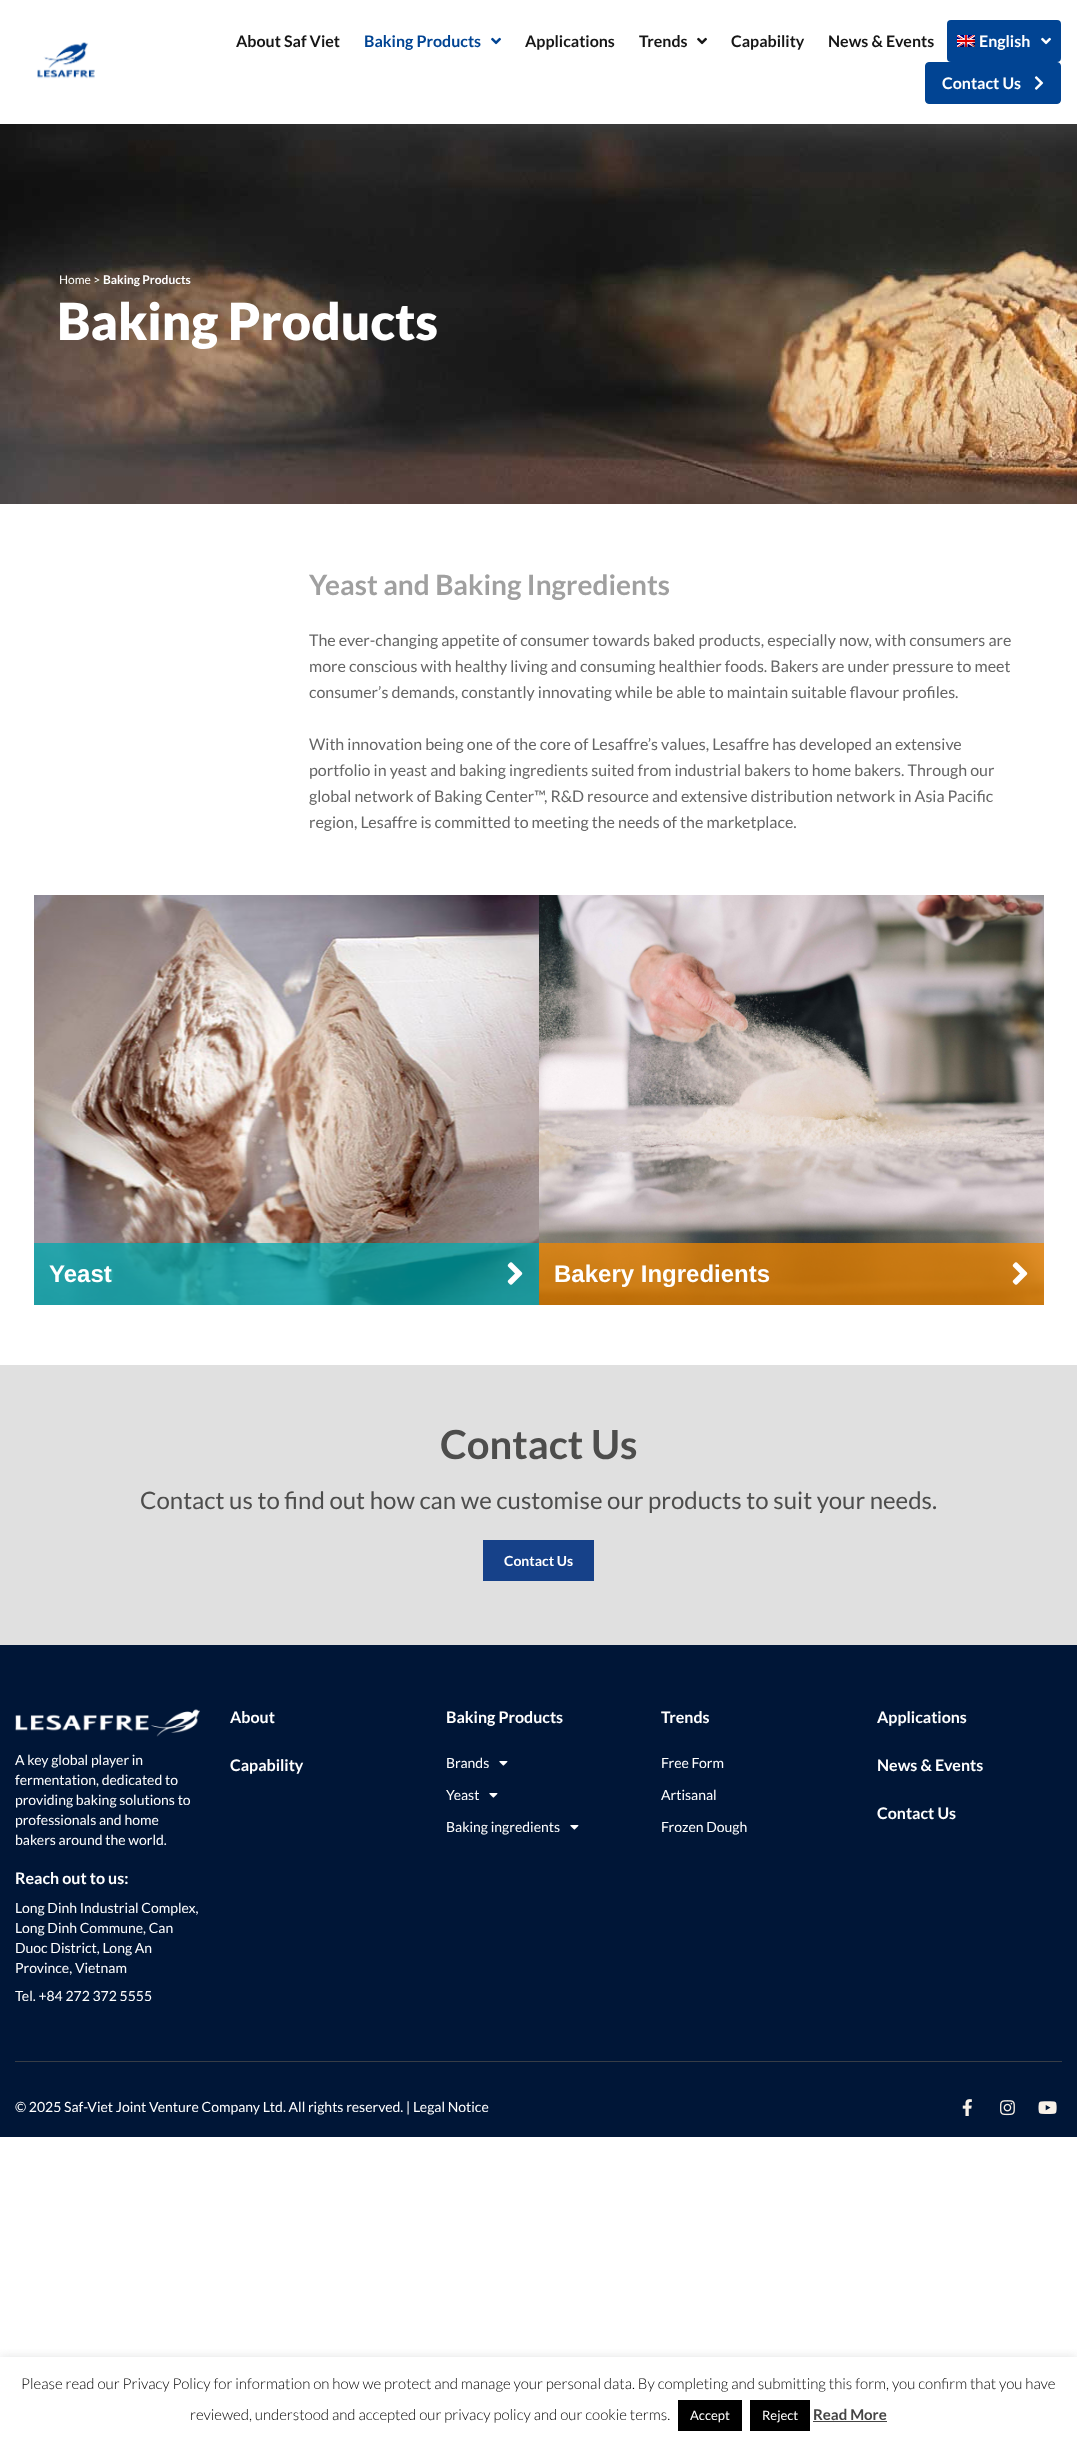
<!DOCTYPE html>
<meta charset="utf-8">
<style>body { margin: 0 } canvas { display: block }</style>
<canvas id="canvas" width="1077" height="2443"></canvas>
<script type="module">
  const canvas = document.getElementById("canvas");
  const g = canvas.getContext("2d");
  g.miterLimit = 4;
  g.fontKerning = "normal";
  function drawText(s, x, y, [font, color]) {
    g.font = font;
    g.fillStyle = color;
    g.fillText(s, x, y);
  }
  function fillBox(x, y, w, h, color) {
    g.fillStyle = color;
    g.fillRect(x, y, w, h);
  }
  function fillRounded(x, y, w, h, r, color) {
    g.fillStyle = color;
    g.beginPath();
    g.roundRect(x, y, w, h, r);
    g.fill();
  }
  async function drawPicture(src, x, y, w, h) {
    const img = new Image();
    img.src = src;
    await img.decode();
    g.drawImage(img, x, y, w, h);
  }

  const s1 = ["bold 16px Lato", "#161616"];
  const s2 = ["bold 16px Lato", "#014493"];
  const s3 = ["bold 16px Lato", "#FFFFFF"];
  const s4 = ["12px Lato", "#FFFFFF"];
  const s5 = ["bold 12px Lato", "#FFFFFF"];
  const s6 = ["900 51px Lato", "#FFFFFF"];
  const s7 = ["bold 28px Lato", "#A0A0A0"];
  const s8 = ["16px Lato", "#666666"];
  const s9 = ["bold 24px Liberation Sans", "#FFFFFF"];
  const s10 = ["bold 40px Lato", "#4D4D4C"];
  const s11 = ["24px Lato", "#4D4D4C"];
  const s12 = ["bold 14px Lato", "#FFFFFF"];
  const s13 = ["14px Lato", "#FFFFFF"];
  const s14 = ["300 15px Lato", "#000000"];
  const s15 = ["13px Lato", "#FFFFFF"];
  const s16 = ["bold 15px Lato", "#444444"];

  fillBox(0, 0, 1077, 2443, "#FFFFFF");
  await drawPicture("pic1.png", 37, 42, 58, 37);
  drawText("About Saf Viet", 236, 47, s1);
  drawText("Baking Products", 364, 47, s2);
  await drawPicture("pic2.png", 491, 37, 10, 8);
  drawText("Applications", 525, 47, s1);
  drawText("Trends", 639, 47, s1);
  await drawPicture("pic3.png", 697, 37, 10, 8);
  drawText("Capability", 731, 47, s1);
  drawText("News & Events", 828, 47, s1);
  fillRounded(947, 20, 114, 42, 4, "#014493");
  await drawPicture("pic4.png", 957, 35, 18, 12);
  drawText("English", 979, 47, s3);
  await drawPicture("pic5.png", 1041, 37, 10, 8);
  g.fillStyle = "#014493";
  g.beginPath();
  g.roundRect(925.5, 62.5, 135, 41, 3.5);
  g.fill();
  g.strokeStyle = "#014493";
  g.stroke();
  drawText("Contact Us", 942, 89, s3);
  await drawPicture("pic6.png", 1034, 76, 10, 14);
  await drawPicture("pic7.png", 0, 124, 1077, 380);
  drawText("Home >", 59, 284, s4);
  drawText("Baking Products", 103, 284, s5);
  drawText("Baking Products", 57, 340, s6);
  drawText("Yeast and Baking Ingredients", 309, 595, s7);
  drawText("The ever-changing appetite of consumer towards baked products, especially now, with consumers are", 309, 646, s8);
  drawText("more conscious with healthy living and consuming healthier foods. Bakers are under pressure to meet", 309, 672, s8);
  drawText("consumer’s demands, constantly innovating while be able to maintain suitable flavour profiles.", 309, 698, s8);
  drawText("With innovation being one of the core of Lesaffre’s values, Lesaffre has developed an extensive", 309, 750, s8);
  drawText("portfolio in yeast and baking ingredients suited from industrial bakers to home bakers. Through our", 309, 776, s8);
  drawText("global network of Baking Center™, R&D resource and extensive distribution network in Asia Pacific", 309, 802, s8);
  drawText("region, Lesaffre is committed to meeting the needs of the marketplace.", 309, 828, s8);
  await drawPicture("pic8.png", 34, 895, 505, 410);
  fillBox(34, 1243, 505, 62, "rgba(0, 169, 175, 0.75)");
  drawText("Yeast", 49, 1282, s9);
  await drawPicture("pic9.png", 507, 1262, 16, 23);
  await drawPicture("pic10.png", 539, 895, 505, 410);
  fillBox(539, 1243, 505, 62, "rgba(241, 135, 0, 0.75)");
  drawText("Bakery Ingredients", 554, 1282, s9);
  await drawPicture("pic11.png", 1012, 1262, 16, 23);
  fillBox(0, 1365, 1077, 280, "#E0E0E0");
  drawText("Contact Us", 440, 1459, s10);
  drawText("Contact us to find out how can we customise our products to suit your needs.", 140, 1509, s11);
  fillBox(483, 1540, 111, 41, "#164189");
  drawText("Contact Us", 504, 1566, s12);
  fillBox(0, 1645, 1077, 492, "#001637");
  await drawPicture("pic12.png", 15, 1709, 185, 28);
  drawText("A key global player in", 15, 1765, s13);
  drawText("fermentation, dedicated to", 15, 1785, s13);
  drawText("providing baking solutions to", 15, 1805, s13);
  drawText("professionals and home", 15, 1825, s13);
  drawText("bakers around the world.", 15, 1845, s13);
  drawText("Reach out to us:", 15, 1884, s3);
  drawText("Long Dinh Industrial Complex,", 15, 1913, s13);
  drawText("Long Dinh Commune, Can", 15, 1933, s13);
  drawText("Duoc District, Long An", 15, 1953, s13);
  drawText("Province, Vietnam", 15, 1973, s13);
  drawText("Tel. +84 272 372 5555", 15, 2001, s13);
  drawText("About", 230, 1723, s3);
  drawText("Capability", 230, 1771, s3);
  drawText("Baking Products", 446, 1723, s3);
  drawText("Brands", 446, 1768, s13);
  await drawPicture("pic13.png", 499, 1761, 9, 5);
  drawText("Yeast", 446, 1800, s13);
  await drawPicture("pic13.png", 489, 1793, 9, 5);
  drawText("Baking ingredients", 446, 1832, s13);
  await drawPicture("pic13.png", 570, 1825, 9, 5);
  drawText("Trends", 661, 1723, s3);
  drawText("Free Form", 661, 1768, s13);
  drawText("Artisanal", 661, 1800, s13);
  drawText("Frozen Dough", 661, 1832, s13);
  drawText("Applications", 877, 1723, s3);
  drawText("News & Events", 877, 1771, s3);
  drawText("Contact Us", 877, 1819, s3);
  fillBox(15, 2061, 1047, 1, "#373D46");
  drawText("© 2025 Saf-Viet Joint Venture Company Ltd. All rights reserved. | Legal Notice", 15, 2112, s13);
  await drawPicture("pic14.png", 962, 2099, 10, 17);
  await drawPicture("pic15.png", 1000, 2100, 15, 16);
  await drawPicture("pic16.png", 1038, 2101, 19, 13);
  g.save();
  g.beginPath();
  g.rect(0, 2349, 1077, 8);
  g.clip();
  g.fillStyle = "rgba(172, 171, 171, 0.3)";
  g.filter = "blur(5px)";
  g.beginPath();
  g.rect(0, 2356, 1077, 86);
  g.fill();
  g.filter = "none";
  g.restore();
  drawText("Please read our Privacy Policy for information on how we protect and manage your personal data. By completing and submitting this form, you confirm that you have", 21, 2389, s14);
  drawText("reviewed, understood and accepted our privacy policy and our cookie terms.", 190, 2420, s14);
  fillBox(678, 2400, 64, 31, "#000000");
  drawText("Accept", 690, 2420, s15);
  fillBox(750, 2400, 60, 31, "#000000");
  drawText("Reject", 762, 2420, s15);
  drawText("Read More", 813, 2420, s16);
  fillBox(813, 2421, 74, 1, "#444444");
</script>
